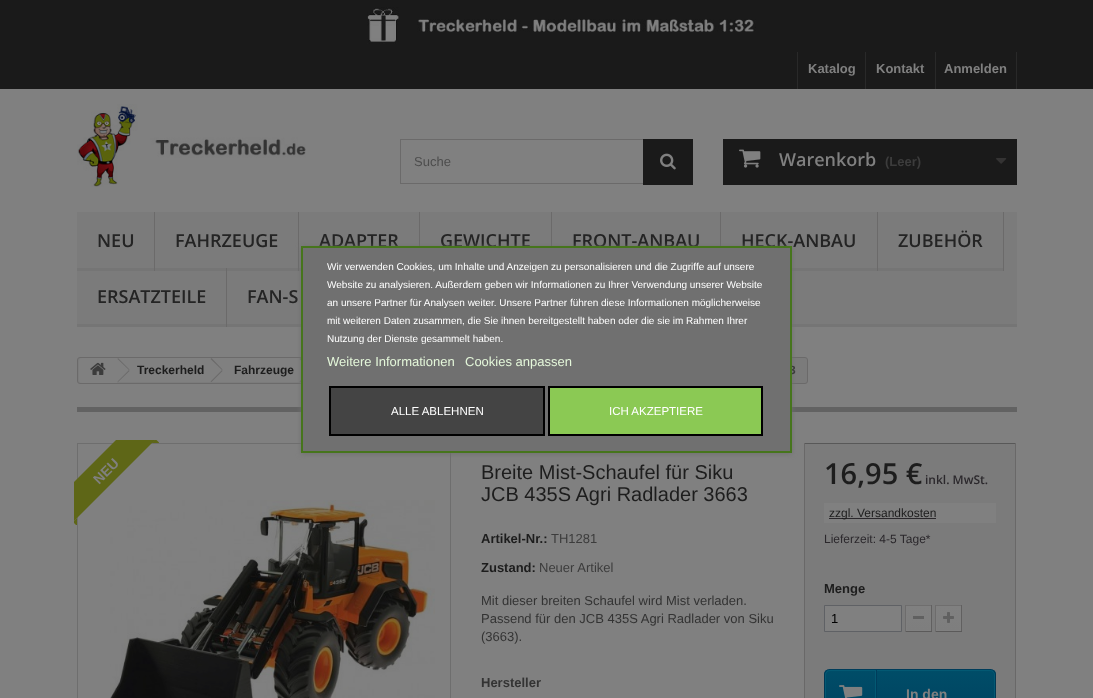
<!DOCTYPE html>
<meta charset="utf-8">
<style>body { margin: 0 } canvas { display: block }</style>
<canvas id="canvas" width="1093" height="698"></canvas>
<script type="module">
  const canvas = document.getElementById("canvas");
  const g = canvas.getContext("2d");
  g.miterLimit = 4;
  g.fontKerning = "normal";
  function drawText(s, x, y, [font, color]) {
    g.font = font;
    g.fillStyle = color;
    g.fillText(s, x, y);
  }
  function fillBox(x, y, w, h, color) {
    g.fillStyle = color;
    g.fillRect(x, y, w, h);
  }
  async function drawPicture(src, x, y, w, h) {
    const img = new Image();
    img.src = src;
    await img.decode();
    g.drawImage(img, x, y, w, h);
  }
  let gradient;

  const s1 = ["bold 13px Liberation Sans", "#808080"];
  const s2 = ["13px Liberation Sans", "#4D4D4D"];
  const s3 = ["600 18px Open Sans", "#808080"];
  const s4 = ["bold 13px Liberation Sans", "#3C3C3C"];
  const s5 = ["600 18px Open Sans", "#242424"];
  const s6 = ["bold 12px Liberation Sans", "#3C3C3C"];
  const s7 = ["10px Liberation Sans", "#FFFFFF"];
  const s8 = ["13px Liberation Sans", "#E4F7DA"];
  const s9 = ["11.5px Liberation Sans", "#FFFFFF"];
  const s10 = ["bold 12px Liberation Sans", "#1D1D1D"];
  const s11 = ["20px Liberation Sans", "#1D1D1D"];
  const s12 = ["bold 13px Liberation Sans", "#1D1D1D"];
  const s13 = ["13px Liberation Sans", "#3C3C3C"];
  const s14 = ["13px Liberation Sans", "#333333"];
  const s15 = ["bold 13px Liberation Sans", "#333333"];
  const s16 = ["600 29px Open Sans", "#1D1D1D"];
  const s17 = ["600 12px Open Sans", "#2B282C"];
  const s18 = ["12px Liberation Sans", "#1D1D1D"];
  const s19 = ["12px Liberation Sans", "#2B282C"];
  const s20 = ["13px Liberation Sans", "#000000"];
  const s21 = ["bold 14px Liberation Sans", "#808080"];

  fillBox(0, 0, 1093, 698, "#808080");
  fillBox(0, 0, 1093, 89, "#1A1A1A");
  await drawPicture("pic1.png", 367, 7, 389, 37);
  fillBox(797, 52, 1, 37, "#292929");
  drawText("Katalog", 808, 73, s1);
  fillBox(865, 52, 1, 37, "#292929");
  drawText("Kontakt", 876, 73, s1);
  fillBox(1016, 52, 1, 37, "#292929");
  fillBox(935, 52, 1, 37, "#292929");
  drawText("Anmelden", 944, 73, s1);
  await drawPicture("pic2.png", 77, 104, 229, 83);
  g.strokeStyle = "#6B6A6A";
  g.strokeRect(400.5, 139.5, 292, 44);
  drawText("Suche", 414, 166, s2);
  fillBox(643, 139, 50, 46, "#1A1A1A");
  await drawPicture("pic3.png", 660, 153, 16, 17);
  fillBox(723, 139, 294, 46, "#1A1A1A");
  await drawPicture("pic4.png", 739, 149, 22, 19);
  drawText("Warenkorb", 779, 166, s3);
  drawText("(Leer)", 885, 166, s4);
  await drawPicture("pic5.png", 996, 158, 11, 6);
  fillBox(77, 212, 940, 112, "#7B7B7B");
  fillBox(77, 324, 940, 3, "#757575");
  fillBox(154, 212, 1, 59, "#6B6A6A");
  fillBox(77, 268, 77, 3, "#757575");
  drawText("NEU", 97, 247, s5);
  fillBox(298, 212, 1, 59, "#6B6A6A");
  fillBox(155, 268, 143, 3, "#757575");
  drawText("FAHRZEUGE", 175, 247, s5);
  fillBox(419, 212, 1, 34, "#6B6A6A");
  fillBox(299, 268, 2, 3, "#757575");
  drawText("ADAPTER", 319, 247, s5);
  fillBox(551, 212, 1, 34, "#6B6A6A");
  drawText("GEWICHTE", 440, 247, s5);
  fillBox(720, 212, 1, 34, "#6B6A6A");
  drawText("FRONT-ANBAU", 572, 247, s5);
  fillBox(877, 212, 1, 59, "#6B6A6A");
  fillBox(792, 268, 85, 3, "#757575");
  drawText("HECK-ANBAU", 741, 247, s5);
  fillBox(1003, 212, 1, 59, "#6B6A6A");
  fillBox(878, 268, 125, 3, "#757575");
  drawText("ZUBEHÖR", 898, 247, s5);
  fillBox(226, 268, 1, 59, "#6B6A6A");
  drawText("ERSATZTEILE", 97, 303, s5);
  drawText("FAN-S", 247, 303, s5);
  g.fillStyle = "#7B7B7B";
  g.beginPath();
  g.roundRect(77.5, 357.5, 730, 26, 2.5);
  g.fill();
  g.stroke();
  fillBox(117, 358, 95, 24, "#808080");
  g.beginPath();
  g.moveTo(222, 359);
  g.lineTo(232, 369);
  g.bezierCurveTo(232.5, 369.5, 232.5, 371, 232, 371.5);
  g.lineTo(222, 381.5);
  g.bezierCurveTo(221, 382.5, 220, 382.5, 219, 381.5);
  g.lineTo(209, 371.5);
  g.bezierCurveTo(208.5, 371, 208.5, 369.5, 209, 369);
  g.lineTo(219, 359);
  g.bezierCurveTo(220, 358, 221, 358, 222, 359);
  g.closePath();
  g.fill();
  fillBox(212, 358, 89, 24, "#808080");
  g.beginPath();
  g.moveTo(311, 359);
  g.lineTo(321, 369);
  g.bezierCurveTo(321.5, 369.5, 321.5, 371, 321, 371.5);
  g.lineTo(311, 381.5);
  g.bezierCurveTo(310, 382.5, 309, 382.5, 308, 381.5);
  g.lineTo(298.5, 371.5);
  g.bezierCurveTo(297.5, 371, 297.5, 369.5, 298.5, 369);
  g.lineTo(308, 359);
  g.bezierCurveTo(309, 358, 310, 358, 311, 359);
  g.closePath();
  g.fill();
  g.fillStyle = "#6B6A6A";
  g.beginPath();
  g.moveTo(300.5, 358);
  g.lineTo(311.5, 369.5);
  g.lineTo(311, 370);
  g.lineTo(299.5, 359);
  g.closePath();
  g.moveTo(311, 370);
  g.lineTo(311.5, 371);
  g.lineTo(300.5, 382);
  g.lineTo(299.5, 381.5);
  g.closePath();
  g.fill();
  fillBox(77, 407, 940, 5, "#626262");
  g.strokeStyle = "#6E6E6E";
  g.strokeRect(77.5, 443.5, 373, 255);
  g.fillStyle = "#707070";
  g.filter = "blur(2.5px)";
  g.beginPath();
  g.rect(301, 247, 491, 207);
  g.fill();
  g.filter = "none";
  drawText("3", 789, 374, s6);
  g.fillStyle = "#707070";
  g.beginPath();
  g.rect(302, 247, 489, 205);
  g.fill();
  g.strokeStyle = "#46751C";
  g.lineWidth = 2;
  g.stroke();
  drawText("Wir verwenden Cookies, um Inhalte und Anzeigen zu personalisieren und die Zugriffe auf unsere", 327, 270, s7);
  drawText("Website zu analysieren. Außerdem geben wir Informationen zu Ihrer Verwendung unserer Website", 327, 288, s7);
  drawText("an unsere Partner für Analysen weiter. Unsere Partner führen diese Informationen möglicherweise", 327, 306, s7);
  drawText("mit weiteren Daten zusammen, die Sie ihnen bereitgestellt haben oder die sie im Rahmen Ihrer", 327, 324, s7);
  drawText("Nutzung der Dienste gesammelt haben.", 327, 342, s7);
  drawText("Weitere Informationen", 327, 366, s8);
  drawText("Cookies anpassen", 465, 366, s8);
  g.fillStyle = "#444444";
  g.beginPath();
  g.rect(330, 387, 214, 48);
  g.fill();
  g.strokeStyle = "#000000";
  g.stroke();
  drawText("ALLE ABLEHNEN", 391, 415, s9);
  g.fillStyle = "#8BC954";
  g.beginPath();
  g.rect(549, 387, 213, 48);
  g.fill();
  g.stroke();
  drawText("ICH AKZEPTIERE", 609, 415, s9);
  g.fillStyle = "#808080";
  g.beginPath();
  g.roundRect(79, 358, 38, 25, [3, 0, 0, 3]);
  g.fill();
  await drawPicture("pic6.png", 90, 362, 16, 13);
  g.fillStyle = "#6B6A6A";
  g.beginPath();
  g.moveTo(118, 358);
  g.lineTo(129.5, 369.5);
  g.lineTo(129, 370);
  g.lineTo(117.5, 359);
  g.closePath();
  g.moveTo(129, 370);
  g.lineTo(129.5, 371);
  g.lineTo(118, 382);
  g.lineTo(117.5, 381.5);
  g.closePath();
  g.fill();
  drawText("Treckerheld", 137, 374, s10);
  g.fillStyle = "#6B6A6A";
  g.beginPath();
  g.moveTo(211.5, 358);
  g.lineTo(222.5, 369.5);
  g.lineTo(222, 370);
  g.lineTo(210.5, 359);
  g.closePath();
  g.moveTo(222, 370);
  g.lineTo(222.5, 371);
  g.lineTo(211.5, 382);
  g.lineTo(210.5, 381.5);
  g.closePath();
  g.fill();
  drawText("Fahrzeuge", 234, 374, s10);
  await drawPicture("pic7.png", 110, 500, 325, 198);
  g.save();
  g.beginPath();
  g.rect(74, 440, 85, 85);
  g.clip();
  g.fillStyle = "#5E6617";
  g.beginPath();
  g.moveTo(50, 506);
  g.lineTo(142, 414);
  g.lineTo(161, 434);
  g.lineTo(69, 526);
  g.closePath();
  g.fill();
  g.beginPath();
  g.moveTo(159.5, 443);
  g.lineTo(151.5, 443);
  g.lineTo(155.5, 439);
  g.closePath();
  g.fill();
  g.restore();
  g.font = "bold 14px Liberation Sans";
  g.fillStyle = "#808080";
  g.save();
  g.translate(99, 485);
  g.rotate(-45 * Math.PI / 180);
  g.fillText("NEU", 0, 0);
  g.restore();
  g.save();
  g.beginPath();
  g.rect(74, 440, 85, 85);
  g.clip();
  g.fillStyle = "#5E6617";
  g.beginPath();
  g.moveTo(77, 518);
  g.lineTo(77, 526);
  g.lineTo(73, 522);
  g.closePath();
  g.fill();
  g.restore();
  drawText("Breite Mist-Schaufel für Siku", 481, 479, s11);
  drawText("JCB 435S Agri Radlader 3663", 481, 501, s11);
  drawText("Artikel-Nr.:", 481, 543, s12);
  drawText("TH1281", 551, 543, s13);
  drawText("Zustand:", 481, 572, s12);
  drawText("Neuer Artikel", 539, 572, s13);
  drawText("Mit dieser breiten Schaufel wird Mist verladen.", 481, 605, s14);
  drawText("Passend für den JCB 435S Agri Radlader von Siku", 481, 623, s14);
  drawText("(3663).", 481, 641, s14);
  drawText("Hersteller", 481, 687, s15);
  fillBox(805, 444, 210, 254, "#7B7B7B");
  fillBox(804, 443, 212, 1, "#585858");
  fillBox(1015, 443, 1, 255, "#696868");
  fillBox(804, 443, 1, 255, "#696868");
  drawText("16,95 €", 824, 484, s16);
  drawText("inkl. MwSt.", 925, 484, s17);
  fillBox(824, 503, 172, 20, "#808080");
  fillBox(829, 518, 107, 1, "#2B282C");
  drawText("zzgl. Versandkosten", 829, 517, s18);
  drawText("Lieferzeit: 4-5 Tage*", 824, 543, s19);
  drawText("Menge", 824, 593, s12);
  g.fillStyle = "#808080";
  g.beginPath();
  g.rect(824.5, 605.5, 77, 26);
  g.fill();
  g.strokeStyle = "#5F6165";
  g.lineWidth = 1;
  g.stroke();
  drawText("1", 831, 623, s20);
  fillBox(905, 605, 27, 1, "#6F6E6E");
  fillBox(931, 605, 1, 27, "#616060");
  fillBox(905, 631, 27, 1, "#5B5A5A");
  fillBox(905, 605, 1, 27, "#6D6C6C");
  gradient = g.createLinearGradient(919, 607, 919, 630);
  gradient.addColorStop(0, "#808080");
  gradient.addColorStop(1, "#7E7E7E");
  g.fillStyle = gradient;
  g.fillRect(907, 607, 23, 23);
  g.strokeStyle = "#808080";
  g.strokeRect(906.5, 606.5, 24, 24);
  fillBox(913, 616, 11, 3, "#606060");
  fillBox(935, 605, 27, 1, "#6F6E6E");
  fillBox(961, 605, 1, 27, "#616060");
  fillBox(935, 631, 27, 1, "#5B5A5A");
  fillBox(935, 605, 1, 27, "#6D6C6C");
  gradient = g.createLinearGradient(949, 607, 949, 630);
  gradient.addColorStop(0, "#808080");
  gradient.addColorStop(1, "#7E7E7E");
  g.fillStyle = gradient;
  g.fillRect(937, 607, 23, 23);
  g.strokeRect(936.5, 606.5, 24, 24);
  await drawPicture("pic8.png", 943, 612, 11, 11);
  g.save();
  g.beginPath();
  g.roundRect(824, 669, 172, 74, 5);
  g.clip();
  gradient = g.createLinearGradient(910, 670, 910, 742);
  gradient.addColorStop(0, "#004D68");
  gradient.addColorStop(1, "#003D5C");
  g.fillStyle = gradient;
  g.fillRect(824, 670, 172, 28);
  g.restore();
  g.beginPath();
  g.moveTo(826, 671);
  g.bezierCurveTo(826.5, 670, 828, 669.5, 829, 669.5);
  g.lineTo(991, 669.5);
  g.bezierCurveTo(992, 669.5, 993.5, 670, 994, 671);
  g.strokeStyle = "#003D5B";
  g.stroke();
  g.beginPath();
  g.moveTo(994, 671);
  g.lineTo(995.5, 673.5);
  g.lineTo(995.5, 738.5);
  g.lineTo(994, 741);
  g.strokeStyle = "#003854";
  g.stroke();
  g.beginPath();
  g.moveTo(826, 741);
  g.lineTo(824.5, 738.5);
  g.lineTo(824.5, 673.5);
  g.lineTo(826, 671);
  g.stroke();
  g.beginPath();
  g.roundRect(825.5, 670.5, 169, 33, 4.5);
  g.strokeStyle = "#035973";
  g.stroke();
  g.beginPath();
  g.moveTo(830, 670.5);
  g.lineTo(875.5, 670.5);
  g.lineTo(875.5, 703.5);
  g.lineTo(830, 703.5);
  g.bezierCurveTo(827.5, 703.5, 825.5, 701.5, 825.5, 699);
  g.lineTo(825.5, 675);
  g.bezierCurveTo(825.5, 672.5, 827.5, 670.5, 830, 670.5);
  g.closePath();
  g.stroke();
  await drawPicture("pic9.png", 839, 685, 24, 13);
  fillBox(876, 670, 1, 28, "#003D5B");
  drawText("In den", 906, 699, s21);
</script>
